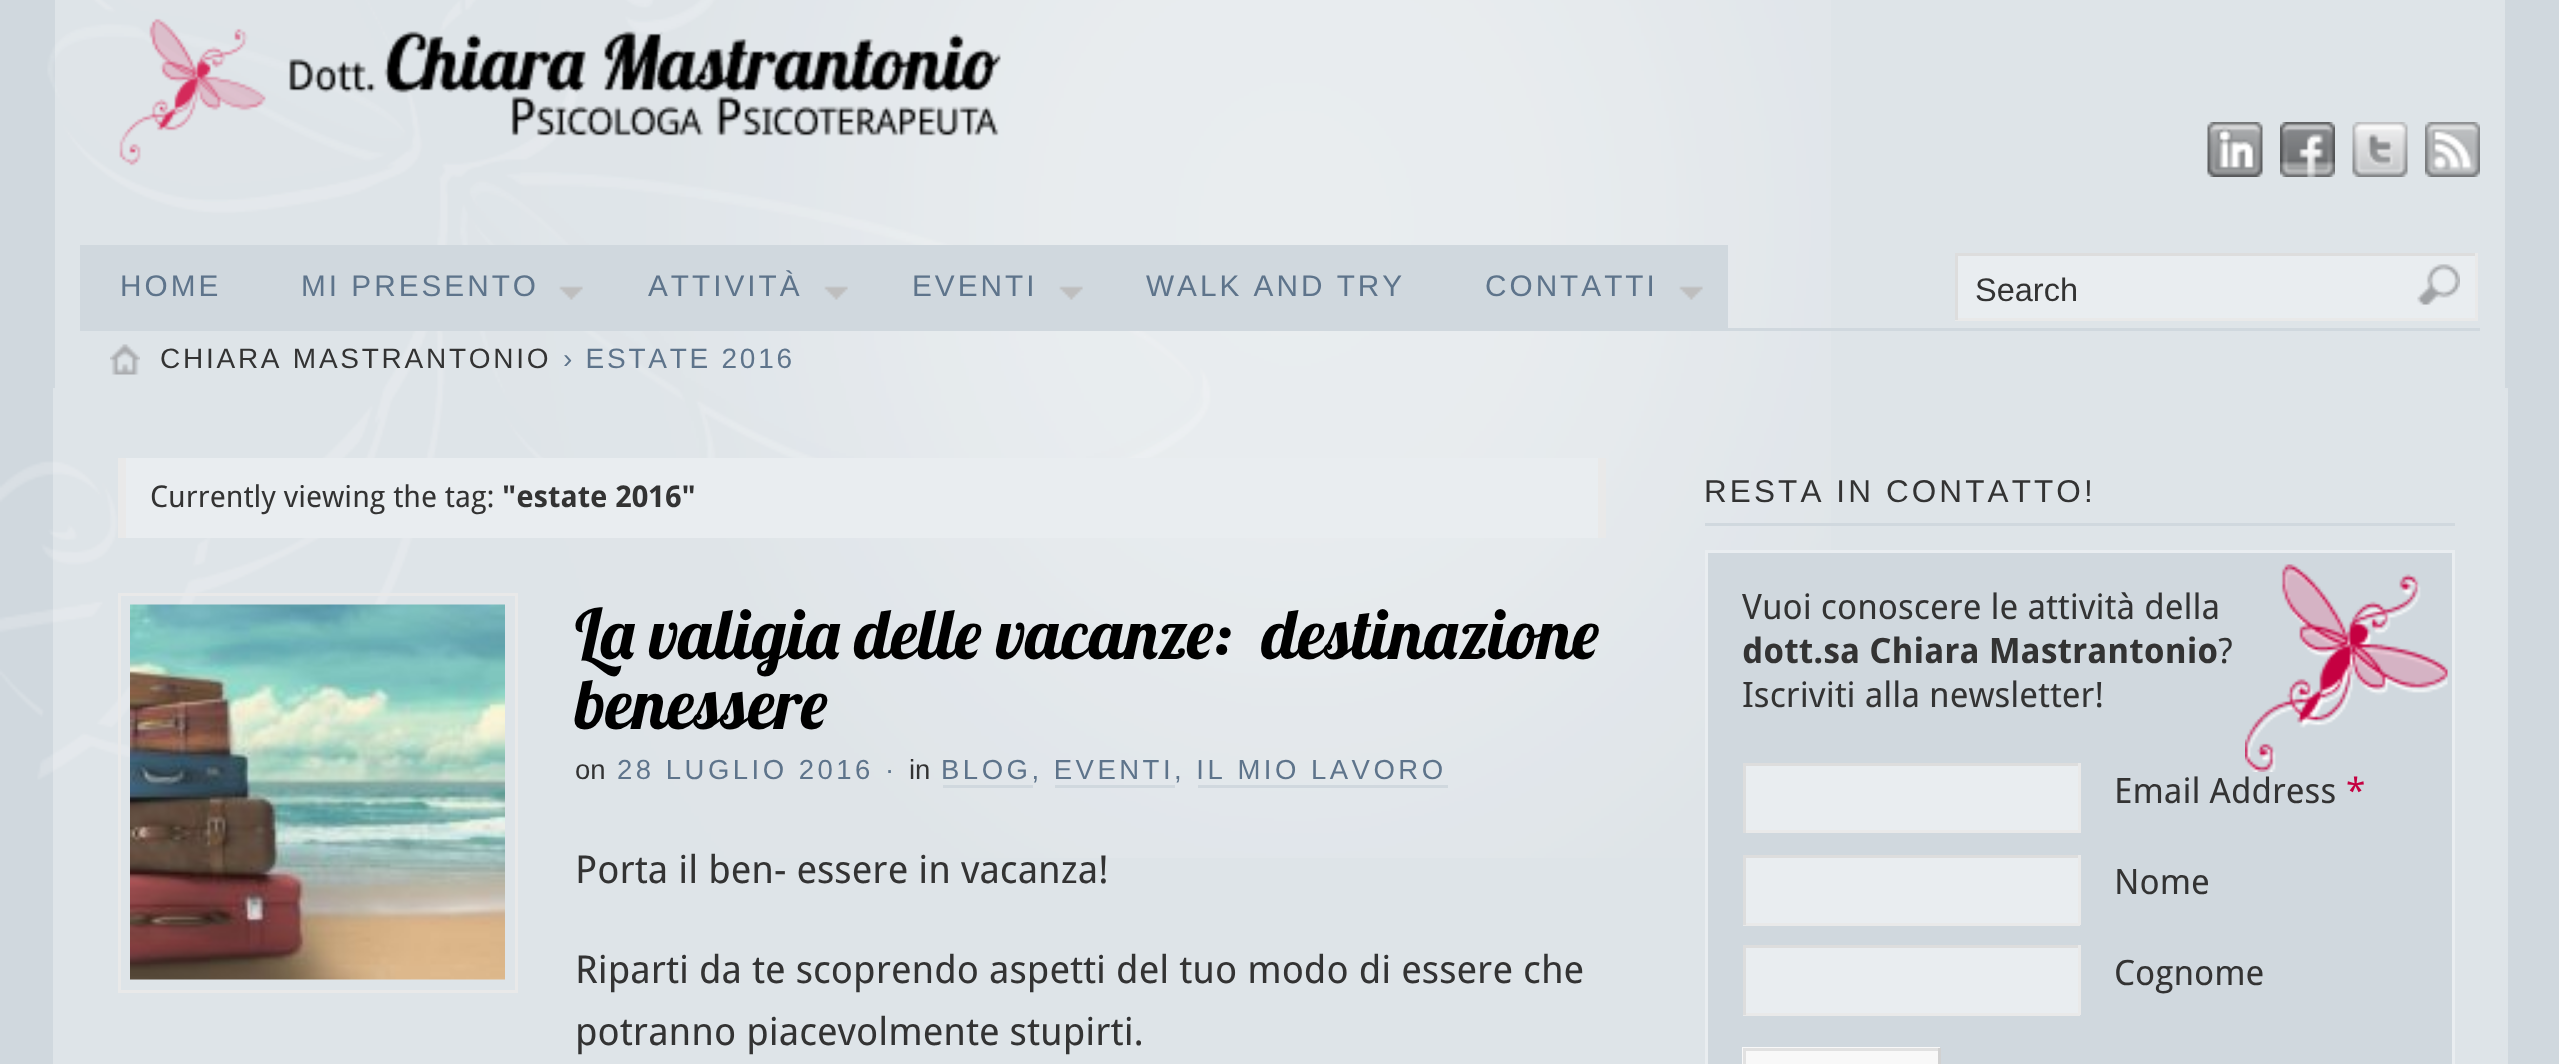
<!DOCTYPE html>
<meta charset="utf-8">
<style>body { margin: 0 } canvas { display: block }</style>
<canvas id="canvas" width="2559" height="1064"></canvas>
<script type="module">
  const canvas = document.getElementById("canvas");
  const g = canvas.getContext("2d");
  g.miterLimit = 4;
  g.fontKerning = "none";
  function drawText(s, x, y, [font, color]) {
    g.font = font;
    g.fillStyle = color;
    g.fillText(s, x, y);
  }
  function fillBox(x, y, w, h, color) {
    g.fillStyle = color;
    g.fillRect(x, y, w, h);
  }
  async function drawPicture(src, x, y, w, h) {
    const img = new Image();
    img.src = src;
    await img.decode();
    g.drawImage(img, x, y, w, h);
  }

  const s1 = ["29.75px Liberation Sans", "#5E748B"];
  const s2 = ["32.5px Liberation Sans", "#333333"];
  const s3 = ["28px Liberation Sans", "#333333"];
  const s4 = ["28px Liberation Sans", "#5E748B"];
  const s5 = ["30px Droid Sans", "#333333"];
  const s6 = ["bold 30px Droid Sans", "#333333"];
  const s7 = ["70px Lobster", "#000000"];
  const s8 = ["27.5px Liberation Sans", "#333333"];
  const s9 = ["27.5px Liberation Sans", "#5E748B"];
  const s10 = ["38.5px Droid Sans", "#333333"];
  const s11 = ["31.5px Liberation Sans", "#333333"];
  const s12 = ["35px Droid Sans", "#333333"];
  const s13 = ["bold 35px Droid Sans", "#333333"];
  const s14 = ["35px Droid Sans", "#C50041"];

  fillBox(0, 0, 2559, 1064, "#D0D8DE");
  await drawPicture("pic1.png", 0, 0, 1831, 858);
  fillBox(55, 0, 2450, 245, "rgba(255, 255, 255, 0.3)");
  await drawPicture("pic2.png", 119, 18, 882, 148);
  await drawPicture("pic3.png", 2207, 122, 56, 55);
  await drawPicture("pic4.png", 2280, 122, 55, 55);
  await drawPicture("pic5.png", 2352, 122, 56, 55);
  await drawPicture("pic6.png", 2425, 122, 55, 55);
  fillBox(55, 245, 2450, 85, "rgba(255, 255, 255, 0.3)");
  fillBox(55, 330, 2450, 58, "rgba(255, 255, 255, 0.3)");
  fillBox(80, 328, 2400, 3, "#D0D8DE");
  fillBox(80, 245, 1648, 83, "#D0D8DE");
  g.letterSpacing = "3px";
  drawText("HOME", 120, 296, s1);
  drawText("MI PRESENTO", 301, 296, s1);
  await drawPicture("pic7.png", 559, 286, 24, 14);
  drawText("ATTIVITÀ", 648, 296, s1);
  await drawPicture("pic7.png", 824, 286, 24, 14);
  drawText("EVENTI", 912, 296, s1);
  await drawPicture("pic7.png", 1059, 286, 24, 14);
  drawText("WALK AND TRY", 1146, 296, s1);
  drawText("CONTATTI", 1485, 296, s1);
  await drawPicture("pic7.png", 1679, 286, 24, 14);
  fillBox(1958, 256, 517, 62, "#E9EDF0");
  fillBox(1955, 253, 523, 3, "#DDDDDD");
  fillBox(2475, 253, 3, 67, "#E9E9E9");
  fillBox(1955, 318, 523, 3, "#E9E9E9");
  fillBox(1955, 253, 3, 67, "#DDDDDD");
  g.letterSpacing = "0px";
  drawText("Search", 1975, 301, s2);
  await drawPicture("pic8.png", 2417, 264, 43, 41);
  await drawPicture("pic9.png", 110, 344, 30, 31);
  g.letterSpacing = "2.75px";
  drawText("CHIARA MASTRANTONIO", 160, 368, s3);
  drawText("› ESTATE 2016", 563, 368, s4);
  fillBox(53, 388, 2455, 676, "rgba(255, 255, 255, 0.3)");
  fillBox(126, 458, 1472, 80, "#E9EDF0");
  fillBox(1598, 458, 8, 80, "#E9E9E9");
  fillBox(118, 458, 8, 80, "#E9E9E9");
  g.letterSpacing = "0px";
  drawText("Currently viewing the tag:", 150, 507, s5);
  drawText("\"estate 2016\"", 502, 507, s6);
  g.strokeStyle = "#E9E9E9";
  g.lineWidth = 3;
  g.strokeRect(119.5, 594.5, 397, 397);
  await drawPicture("pic10.png", 130, 604, 375, 376);
  drawText("La valigia delle vacanze:", 575, 659, s7);
  drawText("destinazione", 1262, 659, s7);
  drawText("benessere", 575, 729, s7);
  drawText("on", 575, 779, s8);
  g.letterSpacing = "3.5px";
  drawText("28 LUGLIO 2016 ·", 617, 779, s9);
  g.letterSpacing = "0px";
  drawText("in", 909, 779, s8);
  g.letterSpacing = "3.5px";
  drawText("BLOG, EVENTI, IL MIO LAVORO", 941, 779, s9);
  fillBox(943, 785, 90, 3, "#D0D8DE");
  fillBox(1055, 785, 120, 3, "#D0D8DE");
  fillBox(1198, 785, 250, 3, "#D0D8DE");
  g.letterSpacing = "0px";
  drawText("Porta il ben- essere in vacanza!", 575, 883, s10);
  drawText("Riparti da te scoprendo aspetti del tuo modo di essere che", 575, 983, s10);
  drawText("potranno piacevolmente stupirti.", 575, 1045, s10);
  fillBox(1705, 523, 750, 3, "#D0D8DE");
  g.letterSpacing = "3.1px";
  drawText("RESTA IN CONTATTO!", 1704, 502, s11);
  fillBox(1708, 553, 744, 511, "#D0D8DE");
  await drawPicture("pic11.png", 2245, 564, 203, 208);
  g.strokeStyle = "#E9EDF0";
  g.strokeRect(1706.5, 551.5, 747, 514);
  g.letterSpacing = "0px";
  drawText("Vuoi conoscere le attività della", 1742, 619, s12);
  drawText("dott.sa Chiara Mastrantonio", 1742, 663, s13);
  drawText("?", 2218, 663, s12);
  drawText("Iscriviti alla newsletter!", 1742, 707, s12);
  fillBox(1746, 766, 332, 64, "#E9EDF0");
  fillBox(1743, 763, 337, 3, "#DDDDDD");
  fillBox(2078, 763, 3, 70, "#E9E9E9");
  fillBox(1743, 830, 337, 3, "#E9E9E9");
  fillBox(1743, 763, 3, 70, "#DDDDDD");
  drawText("Email Address", 2114, 803, s12);
  drawText("*", 2346, 803, s14);
  fillBox(1746, 858, 332, 65, "#E9EDF0");
  fillBox(1743, 855, 337, 3, "#DDDDDD");
  fillBox(2078, 855, 3, 70, "#E9E9E9");
  fillBox(1743, 923, 337, 3, "#E9E9E9");
  fillBox(1743, 855, 3, 70, "#DDDDDD");
  drawText("Nome", 2114, 894, s12);
  fillBox(1746, 948, 332, 65, "#E9EDF0");
  fillBox(1743, 945, 337, 3, "#DDDDDD");
  fillBox(2078, 945, 3, 70, "#E9E9E9");
  fillBox(1743, 1013, 337, 3, "#E9E9E9");
  fillBox(1743, 945, 3, 70, "#DDDDDD");
  drawText("Cognome", 2114, 985, s12);
  fillBox(1742, 1047, 198, 17, "#F8F8F8");
  fillBox(1743, 1048, 197, 3, "#E1E1E1");
  fillBox(1938, 1048, 3, 16, "#D1D1D1");
  fillBox(1743, 1048, 3, 16, "#E1E1E1");
</script>
